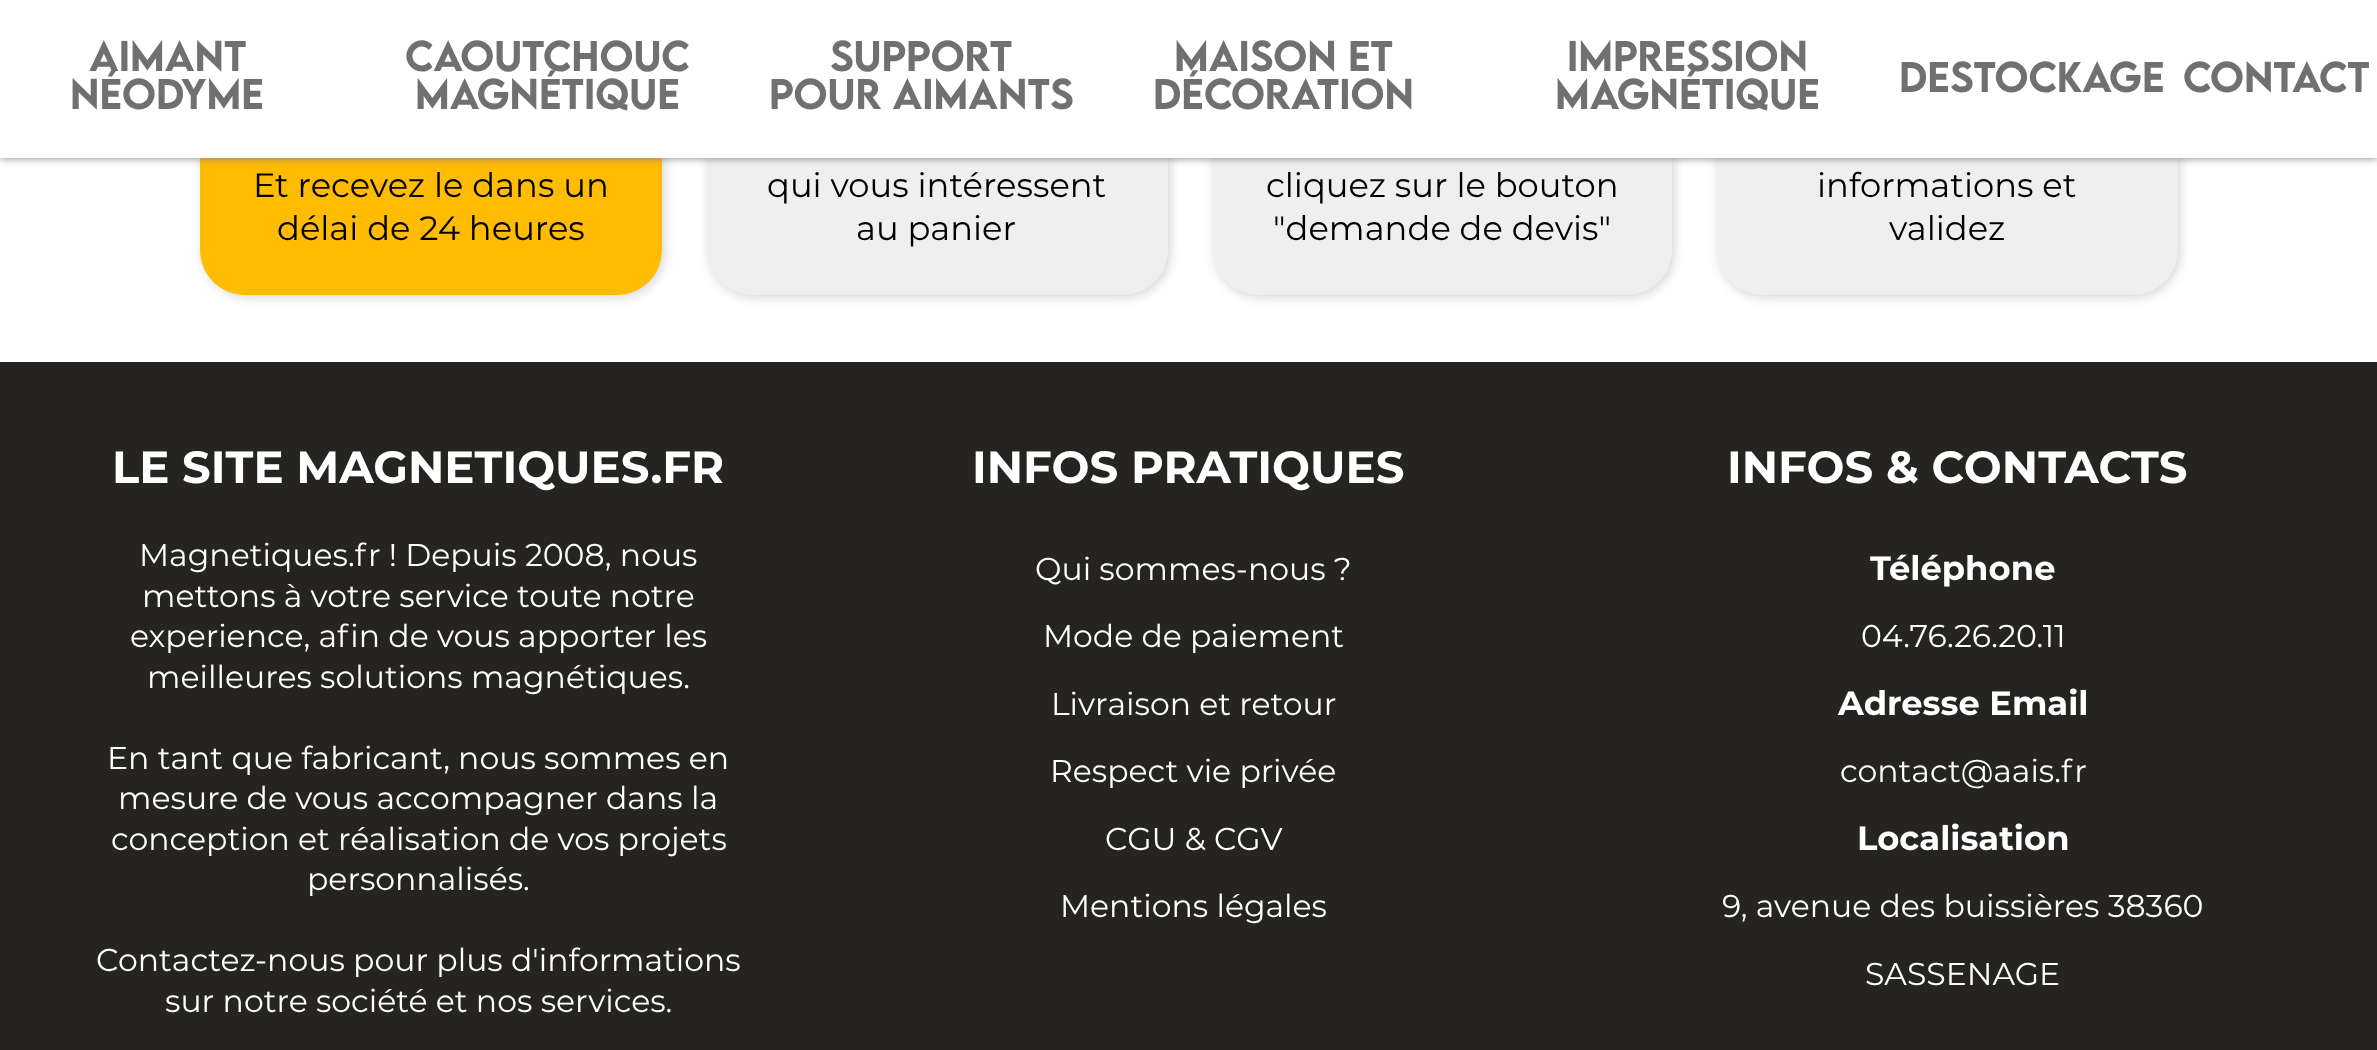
<!DOCTYPE html>
<meta charset="utf-8">
<style>body { margin: 0 } canvas { display: block }</style>
<canvas id="canvas" width="2377" height="1050"></canvas>
<script type="module">
  const canvas = document.getElementById("canvas");
  const g = canvas.getContext("2d");
  g.miterLimit = 4;
  g.fontKerning = "normal";
  function drawText(s, x, y, [font, color]) {
    g.font = font;
    g.fillStyle = color;
    g.fillText(s, x, y);
  }
  function fillBox(x, y, w, h, color) {
    g.fillStyle = color;
    g.fillRect(x, y, w, h);
  }
  function fillRounded(x, y, w, h, r, color) {
    g.fillStyle = color;
    g.beginPath();
    g.roundRect(x, y, w, h, r);
    g.fill();
  }

  const s1 = ["500 38.25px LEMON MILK", "#707070"];
  const s2 = ["33.75px Montserrat", "#000000"];
  const s3 = ["bold 45px Montserrat", "#FFFFFF"];
  const s4 = ["31.5px Montserrat", "#FFFFFF"];
  const s5 = ["bold 33.75px Montserrat", "#FFFFFF"];

  fillBox(0, 0, 2377, 1050, "#FFFFFF");
  g.fillStyle = "#D3D3D3";
  g.filter = "blur(5.5px)";
  g.beginPath();
  g.roundRect(203, 14, 461, 283, 45);
  g.fill();
  g.filter = "none";
  fillRounded(200, 11, 462, 284, 45, "#FFBC02");
  g.fillStyle = "#D3D3D3";
  g.filter = "blur(5.5px)";
  g.beginPath();
  g.roundRect(709, 14, 461, 283, 45);
  g.fill();
  g.filter = "none";
  fillRounded(707, 11, 461, 284, 45, "#EFEFEF");
  g.fillStyle = "#D3D3D3";
  g.filter = "blur(5.5px)";
  g.beginPath();
  g.roundRect(1215, 14, 459, 283, 45);
  g.fill();
  g.filter = "none";
  fillRounded(1213, 11, 459, 284, 45, "#EFEFEF");
  g.fillStyle = "#D3D3D3";
  g.filter = "blur(5.5px)";
  g.beginPath();
  g.roundRect(1719, 14, 461, 283, 45);
  g.fill();
  g.filter = "none";
  fillRounded(1717, 11, 461, 284, 45, "#EFEFEF");
  g.fillStyle = "#808080";
  g.filter = "blur(4.5px)";
  g.beginPath();
  g.rect(0, 0, 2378, 158);
  g.fill();
  g.filter = "none";
  fillBox(0, 0, 2377, 158, "#FFFFFF");
  drawText("AIMANT", 89, 71, s1);
  drawText("NÉODYME", 70, 109, s1);
  drawText("CAOUTCHOUC", 405, 71, s1);
  drawText("MAGNÉTIQUE", 415, 109, s1);
  drawText("SUPPORT", 830, 71, s1);
  drawText("POUR AIMANTS", 769, 109, s1);
  drawText("MAISON ET", 1174, 71, s1);
  drawText("DÉCORATION", 1153, 109, s1);
  drawText("IMPRESSION", 1567, 71, s1);
  drawText("MAGNÉTIQUE", 1555, 109, s1);
  drawText("DESTOCKAGE", 1899, 92, s1);
  drawText("CONTACT", 2183, 92, s1);
  drawText("Et recevez le dans un", 253, 197, s2);
  drawText("délai de 24 heures", 277, 240, s2);
  drawText("qui vous intéressent", 767, 197, s2);
  drawText("au panier", 856, 240, s2);
  drawText("cliquez sur le bouton", 1266, 197, s2);
  drawText("\"demande de devis\"", 1273, 240, s2);
  drawText("informations et", 1817, 197, s2);
  drawText("validez", 1889, 240, s2);
  fillBox(0, 362, 2377, 688, "#262420");
  drawText("LE SITE MAGNETIQUES.FR", 112, 483, s3);
  drawText("Magnetiques.fr ! Depuis 2008, nous", 139, 566, s4);
  drawText("mettons à votre service toute notre", 142, 607, s4);
  drawText("experience, afin de vous apporter les", 130, 647, s4);
  drawText("meilleures solutions magnétiques.", 147, 688, s4);
  drawText("En tant que fabricant, nous sommes en", 107, 769, s4);
  drawText("mesure de vous accompagner dans la", 118, 809, s4);
  drawText("conception et réalisation de vos projets", 111, 850, s4);
  drawText("personnalisés.", 307, 890, s4);
  drawText("Contactez-nous pour plus d'informations", 96, 971, s4);
  drawText("sur notre société et nos services.", 165, 1012, s4);
  drawText("INFOS PRATIQUES", 972, 483, s3);
  drawText("Qui sommes-nous ?", 1035, 580, s4);
  drawText("Mode de paiement", 1043, 647, s4);
  drawText("Livraison et retour", 1051, 715, s4);
  drawText("Respect vie privée", 1050, 782, s4);
  drawText("CGU & CGV", 1105, 850, s4);
  drawText("Mentions légales", 1060, 917, s4);
  drawText("INFOS & CONTACTS", 1727, 483, s3);
  drawText("Téléphone", 1870, 580, s5);
  drawText("04.76.26.20.11", 1861, 647, s4);
  drawText("Adresse Email", 1838, 715, s5);
  drawText("contact@aais.fr", 1840, 782, s4);
  drawText("Localisation", 1857, 850, s5);
  drawText("9, avenue des buissières 38360", 1722, 917, s4);
  drawText("SASSENAGE", 1865, 985, s4);
</script>
